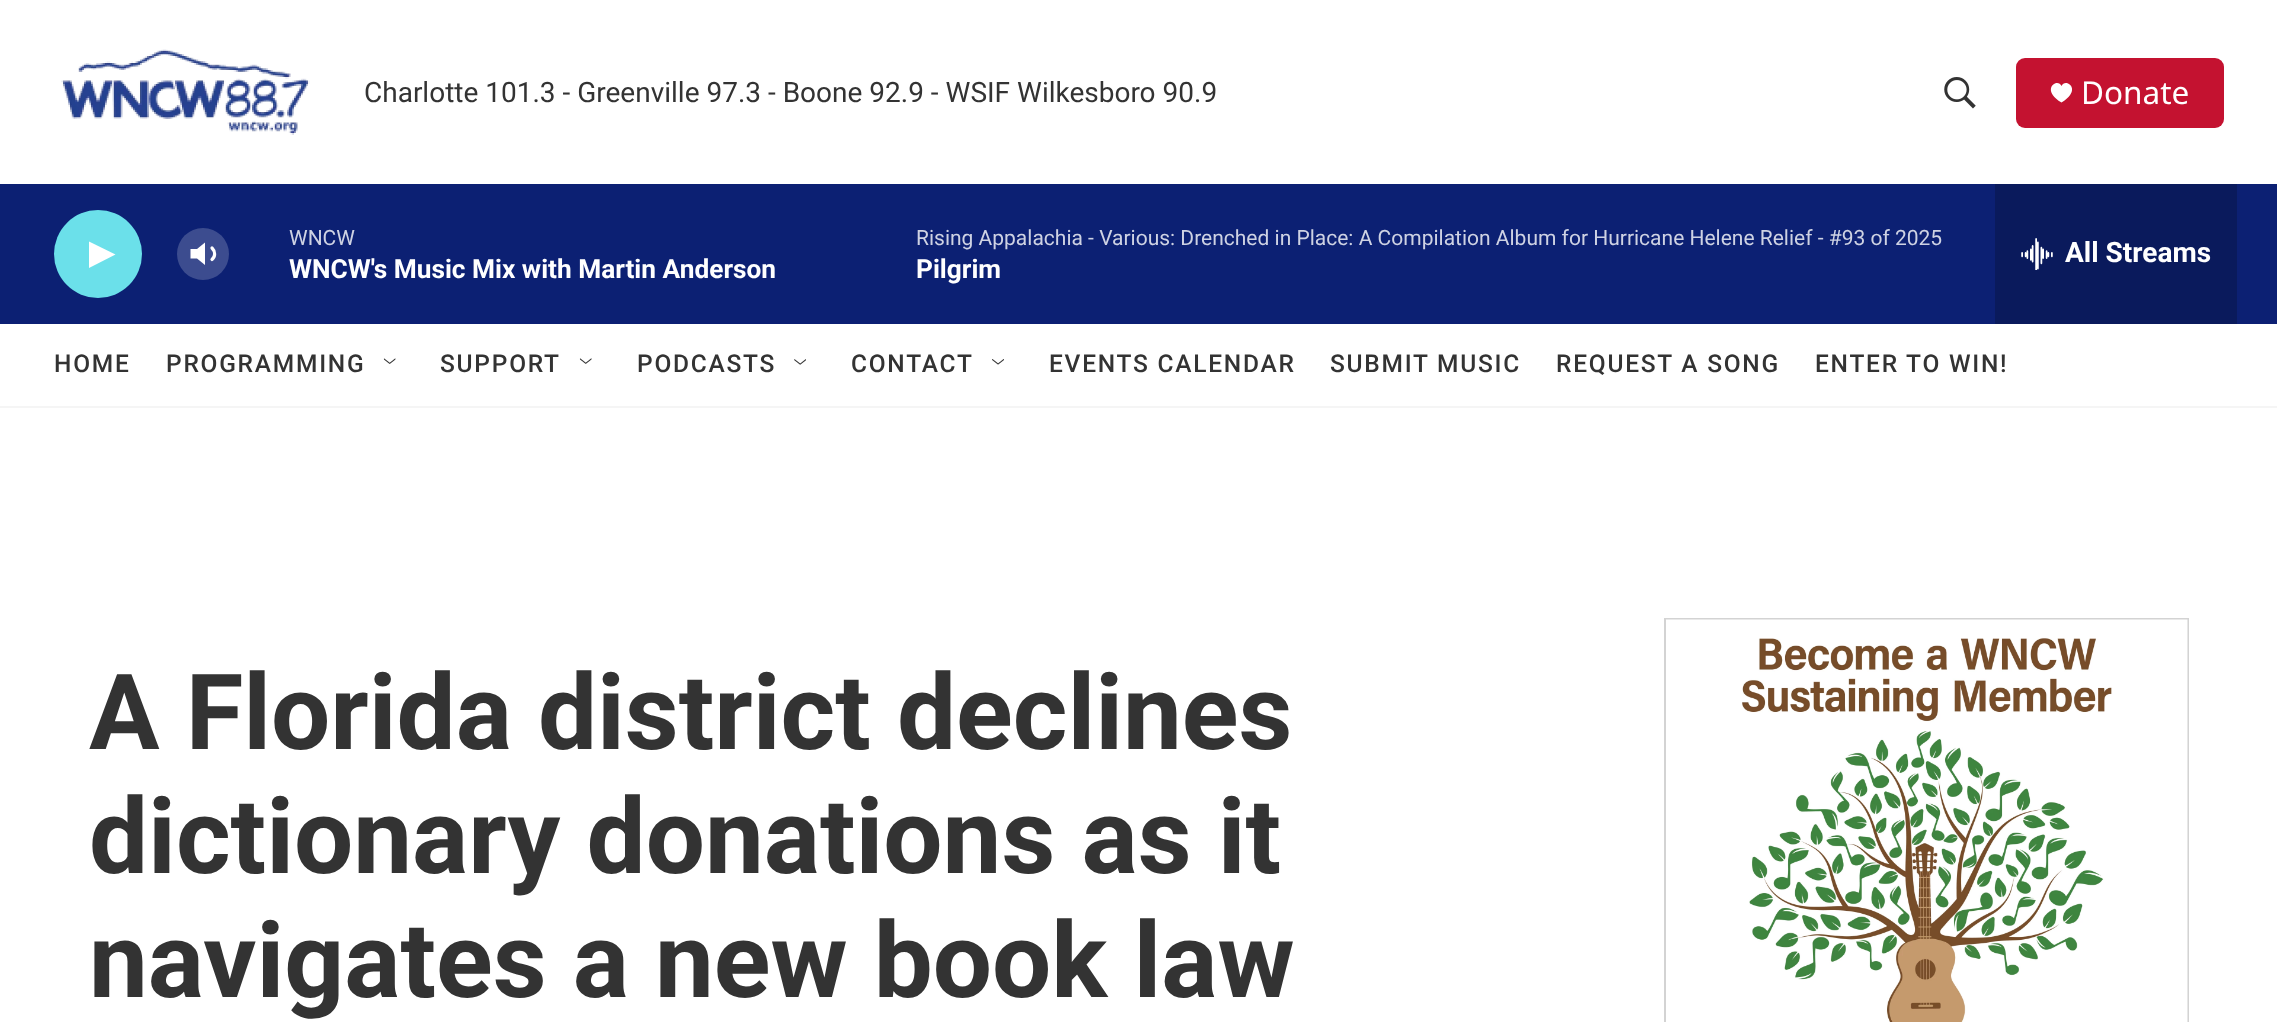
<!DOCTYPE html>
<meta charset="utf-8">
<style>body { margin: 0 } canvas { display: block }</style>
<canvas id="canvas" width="2277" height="1022"></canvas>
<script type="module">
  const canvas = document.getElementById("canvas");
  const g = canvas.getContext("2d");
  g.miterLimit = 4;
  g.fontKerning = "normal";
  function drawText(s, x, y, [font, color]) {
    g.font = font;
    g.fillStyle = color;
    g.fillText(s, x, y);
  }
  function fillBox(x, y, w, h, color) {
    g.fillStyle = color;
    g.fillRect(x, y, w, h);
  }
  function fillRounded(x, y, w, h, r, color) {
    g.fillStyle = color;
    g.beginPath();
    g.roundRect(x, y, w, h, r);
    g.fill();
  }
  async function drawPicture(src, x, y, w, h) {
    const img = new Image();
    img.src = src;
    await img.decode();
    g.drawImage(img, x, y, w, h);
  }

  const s1 = ["28px Roboto", "#333333"];
  const s2 = ["31.5px Noto Sans", "#FFFFFF"];
  const s3 = ["21px Roboto", "#CED2E3"];
  const s4 = ["bold 26.25px 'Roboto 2'", "#FFFFFF"];
  const s5 = ["bold 28px 'Roboto 2'", "#FFFFFF"];
  const s6 = ["500 24.5px Roboto", "#333333"];
  const s7 = ["bold 105px Roboto", "#333333"];

  fillBox(0, 0, 2277, 1022, "#FFFFFF");
  fillBox(0, 406, 2277, 2, "#F5F5F5");
  await drawPicture("pic1.png", 61, 49, 249, 86);
  drawText("Charlotte 101.3 - Greenville 97.3 - Boone 92.9 - WSIF Wilkesboro 90.9", 364, 102, s1);
  await drawPicture("pic2.png", 1944, 77, 32, 32);
  fillRounded(2016, 58, 208, 70, 9, "#C41230");
  g.fillStyle = "#FFFFFF";
  g.beginPath();
  g.moveTo(2061.5, 86);
  g.bezierCurveTo(2058, 77, 2039.5, 89, 2061.5, 102.5);
  g.bezierCurveTo(2083.5, 89, 2065, 77, 2061.5, 86);
  g.closePath();
  g.fill();
  drawText("Donate", 2081, 104, s2);
  fillBox(0, 184, 2277, 140, "#0C2073");
  g.fillStyle = "#6BE0EA";
  g.beginPath();
  g.arc(98, 254, 44, 0, Math.PI * 2);
  g.fill();
  g.fillStyle = "#FFFFFF";
  g.beginPath();
  g.moveTo(89, 241.5);
  g.lineTo(115.5, 254.5);
  g.lineTo(89, 268);
  g.closePath();
  g.fill();
  g.beginPath();
  g.moveTo(205, 242.5);
  g.lineTo(197, 249);
  g.lineTo(190.5, 249);
  g.lineTo(190.5, 258.5);
  g.lineTo(197, 258.5);
  g.lineTo(205, 265);
  g.closePath();
  g.fill();
  g.beginPath();
  g.moveTo(212, 248);
  g.bezierCurveTo(215.5, 251.5, 215.5, 256.5, 212, 259.5);
  g.strokeStyle = "#FFFFFF";
  g.lineWidth = 3.2;
  g.lineCap = "round";
  g.lineJoin = "round";
  g.stroke();
  g.fillStyle = "rgba(255, 255, 255, 0.2)";
  g.beginPath();
  g.arc(203, 254, 26, 0, Math.PI * 2);
  g.fill();
  drawText("WNCW", 289, 245, s3);
  drawText("WNCW's Music Mix with Martin Anderson", 289, 278, s4);
  drawText("Rising Appalachia - Various: Drenched in Place: A Compilation Album for Hurricane Helene Relief - #93 of 2025", 916, 245, s3);
  drawText("Pilgrim", 916, 278, s4);
  fillBox(1995, 184, 242, 140, "#0A1A5C");
  await drawPicture("pic3.png", 2021, 238, 32, 32);
  drawText("All Streams", 2065, 262, s5);
  g.letterSpacing = "1.75px";
  drawText("HOME", 54, 372, s6);
  drawText("PROGRAMMING", 166, 372, s6);
  await drawPicture("pic4.png", 383, 358, 13, 6);
  drawText("SUPPORT", 440, 372, s6);
  await drawPicture("pic5.png", 579, 358, 13, 6);
  drawText("PODCASTS", 637, 372, s6);
  await drawPicture("pic6.png", 794, 359, 12, 6);
  drawText("CONTACT", 851, 372, s6);
  await drawPicture("pic7.png", 992, 359, 12, 6);
  drawText("EVENTS CALENDAR", 1049, 372, s6);
  drawText("SUBMIT MUSIC", 1330, 372, s6);
  drawText("REQUEST A SONG", 1556, 372, s6);
  drawText("ENTER TO WIN!", 1815, 372, s6);
  g.letterSpacing = "0px";
  drawText("A Florida district declines", 89, 749, s7);
  drawText("dictionary donations as it", 89, 873, s7);
  drawText("navigates a new book law", 89, 997, s7);
  g.strokeStyle = "#D3D3D3";
  g.lineWidth = 2;
  g.lineJoin = "miter";
  g.strokeRect(1665, 619, 523, 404);
  await drawPicture("pic8.png", 1666, 619, 522, 403);
</script>
